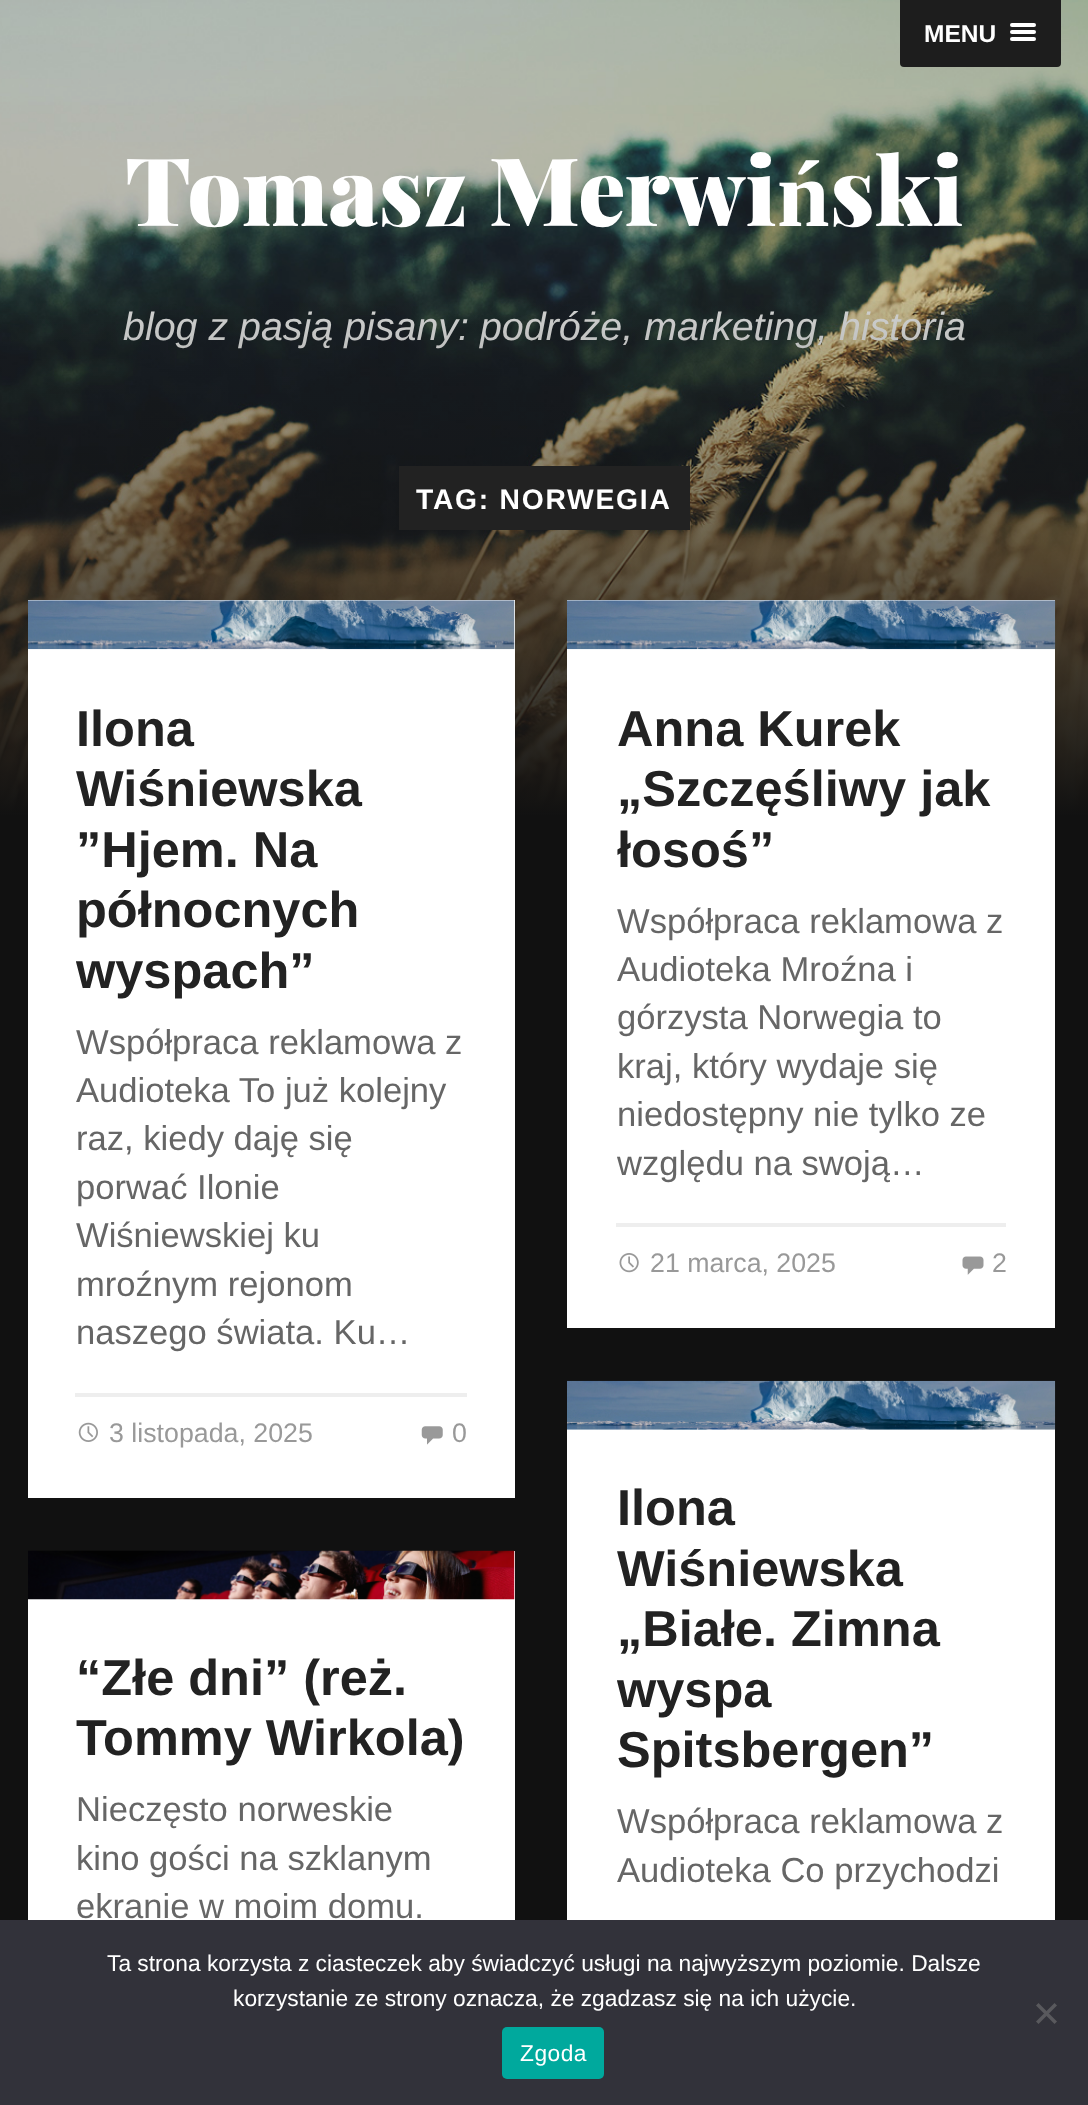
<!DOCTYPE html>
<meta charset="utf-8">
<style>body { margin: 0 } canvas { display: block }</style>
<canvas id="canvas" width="1088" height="2105"></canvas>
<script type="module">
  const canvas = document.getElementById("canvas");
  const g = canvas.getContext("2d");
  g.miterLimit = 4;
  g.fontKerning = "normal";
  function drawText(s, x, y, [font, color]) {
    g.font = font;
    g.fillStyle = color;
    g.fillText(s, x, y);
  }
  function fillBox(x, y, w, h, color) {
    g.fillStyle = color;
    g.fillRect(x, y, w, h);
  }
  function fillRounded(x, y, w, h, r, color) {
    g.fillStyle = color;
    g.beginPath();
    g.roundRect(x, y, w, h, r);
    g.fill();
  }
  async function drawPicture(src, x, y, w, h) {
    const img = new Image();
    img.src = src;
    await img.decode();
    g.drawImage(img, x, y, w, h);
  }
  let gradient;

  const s1 = ["bold 24.5px Liberation Sans", "#FFFFFF"];
  const s2 = ["900 94.5px Playfair Display", "#FFFFFF"];
  const s3 = ["bold 94.5px Liberation Serif", "#FFFFFF"];
  const s4 = ["italic 39.4px Liberation Sans", "#D5D6D5"];
  const s5 = ["bold 28.25px Liberation Sans", "#FFFFFF"];
  const s6 = ["bold 50.5px Liberation Sans", "#222222"];
  const s7 = ["34.6px Liberation Sans", "#666666"];
  const s8 = ["26.75px Liberation Sans", "#999999"];
  const s9 = ["22.75px Liberation Sans", "#FFFFFF"];

  fillBox(0, 0, 1088, 2105, "#FFFFFF");
  await drawPicture("pic1.png", 0, 0, 1088, 813);
  g.fillStyle = "#1D1D1D";
  g.beginPath();
  g.roundRect(900, 0, 161, 67, [0, 0, 4, 4]);
  g.fill();
  drawText("MENU", 924, 42, s1);
  fillRounded(1010, 23, 26, 4, 2, "#FFFFFF");
  fillRounded(1010, 30, 26, 4, 2, "#FFFFFF");
  fillRounded(1010, 37, 26, 4, 2, "#FFFFFF");
  drawText("Tomasz Merwi", 125, 226, s2);
  drawText("ń", 777, 226, s3);
  drawText("ski", 830, 226, s2);
  drawText("blog z pasją pisany: podróże, marketing, historia", 123, 340, s4);
  gradient = g.createLinearGradient(544, 290, 544, 816);
  gradient.addColorStop(0, "rgba(17, 17, 17, 0)");
  gradient.addColorStop(1, "#111111");
  g.fillStyle = gradient;
  g.fillRect(0, 301, 1088, 515);
  fillBox(399, 466, 291, 64, "#222222");
  g.letterSpacing = "1.75px";
  drawText("TAG: NORWEGIA", 416, 509, s5);
  fillBox(0, 816, 1088, 1104, "#111111");
  fillBox(28, 600, 487, 898, "#FFFFFF");
  await drawPicture("pic2.png", 28, 600, 487, 50);
  g.letterSpacing = "0px";
  drawText("Ilona", 76, 746, s6);
  drawText("Wiśniewska", 76, 806, s6);
  drawText("”Hjem. Na", 76, 867, s6);
  drawText("północnych", 76, 927, s6);
  drawText("wyspach”", 76, 988, s6);
  drawText("Współpraca reklamowa z", 76, 1054, s7);
  drawText("Audioteka To już kolejny", 76, 1102, s7);
  drawText("raz, kiedy daję się", 76, 1150, s7);
  drawText("porwać Ilonie", 76, 1199, s7);
  drawText("Wiśniewskiej ku", 76, 1247, s7);
  drawText("mroźnym rejonom", 76, 1296, s7);
  drawText("naszego świata. Ku…", 76, 1344, s7);
  fillBox(75, 1393, 392, 4, "#EEEEEE");
  await drawPicture("pic3.png", 78, 1422, 20, 20);
  drawText("3 listopada, 2025", 109, 1442, s8);
  await drawPicture("pic4.png", 421, 1426, 22, 19);
  drawText("0", 452, 1442, s8);
  fillBox(567, 600, 488, 728, "#FFFFFF");
  await drawPicture("pic5.png", 567, 600, 489, 50);
  drawText("Anna Kurek", 617, 746, s6);
  drawText("„Szczęśliwy jak", 617, 806, s6);
  drawText("łosoś”", 617, 867, s6);
  drawText("Współpraca reklamowa z", 617, 933, s7);
  drawText("Audioteka Mroźna i", 617, 981, s7);
  drawText("górzysta Norwegia to", 617, 1029, s7);
  drawText("kraj, który wydaje się", 617, 1078, s7);
  drawText("niedostępny nie tylko ze", 617, 1126, s7);
  drawText("względu na swoją…", 617, 1175, s7);
  fillBox(616, 1223, 390, 4, "#EEEEEE");
  await drawPicture("pic6.png", 619, 1253, 20, 20);
  drawText("21 marca, 2025", 650, 1272, s8);
  await drawPicture("pic7.png", 962, 1256, 22, 19);
  drawText("2", 992, 1272, s8);
  fillBox(28, 1551, 487, 369, "#FFFFFF");
  await drawPicture("pic8.png", 28, 1550, 487, 50);
  drawText("“Złe dni” (reż.", 76, 1695, s6);
  drawText("Tommy Wirkola)", 76, 1755, s6);
  drawText("Nieczęsto norweskie", 76, 1821, s7);
  drawText("kino gości na szklanym", 76, 1870, s7);
  drawText("ekranie w moim domu.", 76, 1918, s7);
  fillBox(567, 1429, 488, 491, "#FFFFFF");
  await drawPicture("pic9.png", 567, 1380, 489, 50);
  drawText("Ilona", 617, 1525, s6);
  drawText("Wiśniewska", 617, 1586, s6);
  drawText("„Białe. Zimna", 617, 1646, s6);
  drawText("wyspa", 617, 1707, s6);
  drawText("Spitsbergen”", 617, 1767, s6);
  drawText("Współpraca reklamowa z", 617, 1833, s7);
  drawText("Audioteka Co przychodzi", 617, 1882, s7);
  fillBox(0, 1920, 1088, 185, "#32323A");
  drawText("Ta strona korzysta z ciasteczek aby świadczyć usługi na najwyższym poziomie. Dalsze", 107, 1971, s9);
  drawText("korzystanie ze strony oznacza, że zgadzasz się na ich użycie.", 233, 2006, s9);
  g.fillStyle = "#59595D";
  g.beginPath();
  g.moveTo(1054.5, 2003);
  g.lineTo(1057, 2005.5);
  g.lineTo(1038.5, 2024);
  g.lineTo(1036, 2021.5);
  g.closePath();
  g.fill();
  g.beginPath();
  g.moveTo(1036, 2005.5);
  g.lineTo(1038.5, 2003);
  g.lineTo(1057, 2021.5);
  g.lineTo(1054.5, 2024);
  g.closePath();
  g.fill();
  fillRounded(502, 2027, 102, 52, 5, "#00A99D");
  g.letterSpacing = "0.5px";
  drawText("Zgoda", 520, 2061, s9);
</script>
